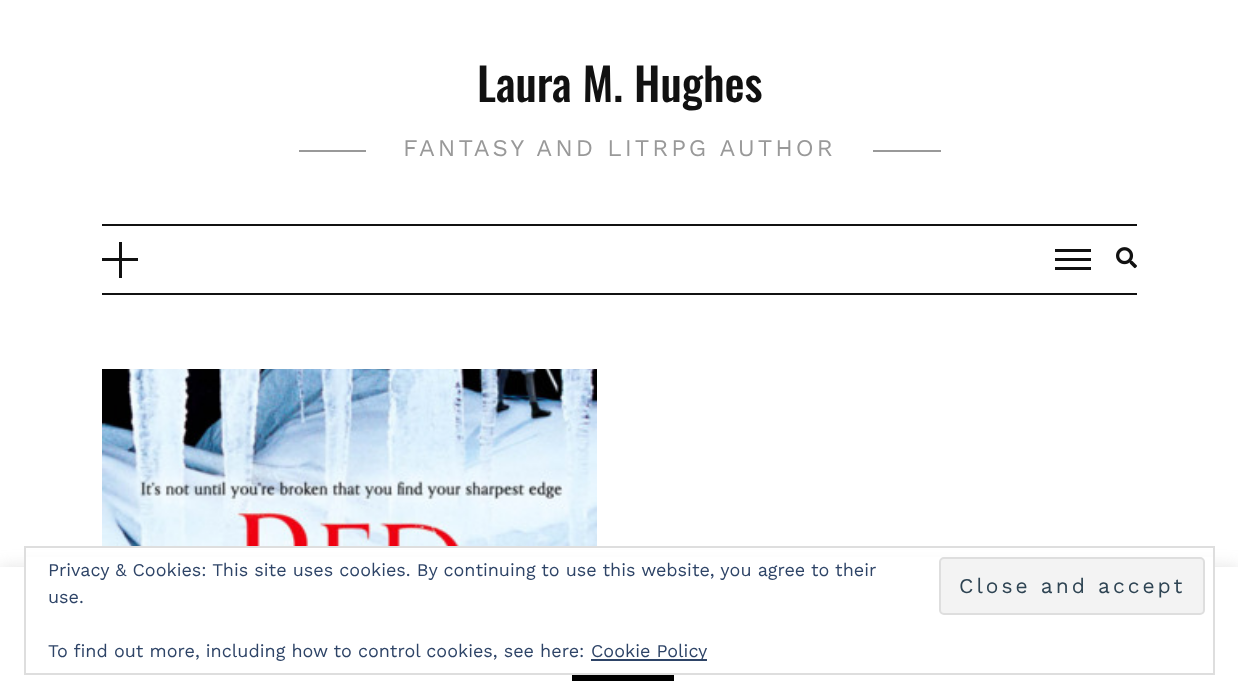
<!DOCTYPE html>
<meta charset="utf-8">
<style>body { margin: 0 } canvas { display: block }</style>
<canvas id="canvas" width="1238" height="698"></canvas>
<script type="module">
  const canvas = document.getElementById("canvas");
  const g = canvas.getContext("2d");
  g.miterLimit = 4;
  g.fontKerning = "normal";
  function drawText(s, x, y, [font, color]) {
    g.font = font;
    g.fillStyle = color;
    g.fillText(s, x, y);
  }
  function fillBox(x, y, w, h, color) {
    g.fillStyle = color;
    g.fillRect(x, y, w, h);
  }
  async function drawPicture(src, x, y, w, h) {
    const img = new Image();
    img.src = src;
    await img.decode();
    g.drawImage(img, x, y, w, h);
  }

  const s1 = ["500 45px Oswald", "#111111"];
  const s2 = ["24px Work Sans", "#999999"];
  const s3 = ["18px Work Sans", "#2E4467"];
  const s4 = ["21px Work Sans", "#2E4453"];

  fillBox(0, 0, 1238, 698, "#FFFFFF");
  drawText("Laura M. Hughes", 477, 102, s1);
  fillBox(299, 150, 67, 2, "#999999");
  g.letterSpacing = "3px";
  drawText("FANTASY AND LITRPG AUTHOR", 403, 156, s2);
  fillBox(873, 150, 68, 2, "#999999");
  fillBox(102, 224, 1035, 2, "#111111");
  fillBox(102, 293, 1035, 2, "#111111");
  fillBox(102, 258, 36, 3, "#111111");
  fillBox(119, 242, 3, 36, "#111111");
  fillBox(1055, 249, 36, 3, "#111111");
  fillBox(1055, 258, 36, 3, "#111111");
  fillBox(1055, 267, 36, 3, "#111111");
  await drawPicture("pic1.png", 1116, 247, 21, 22);
  await drawPicture("pic2.png", 102, 369, 495, 177);
  g.fillStyle = "rgba(172, 171, 171, 0.3)";
  g.filter = "blur(7.5px)";
  g.beginPath();
  g.rect(0, 566, 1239, 132);
  g.fill();
  g.filter = "none";
  fillBox(0, 567, 1238, 131, "#FFFFFF");
  fillBox(572, 675, 102, 6, "#000000");
  fillBox(26, 557, 1187, 10, "#FFFFFF");
  g.strokeStyle = "#DEDEDE";
  g.lineWidth = 2;
  g.strokeRect(25, 547, 1189, 127);
  g.letterSpacing = "0px";
  drawText("Privacy & Cookies: This site uses cookies. By continuing to use this website, you agree to their", 48, 576, s3);
  drawText("use.", 48, 603, s3);
  g.fillStyle = "#F3F3F3";
  g.beginPath();
  g.roundRect(940, 558, 264, 56, 4);
  g.fill();
  g.stroke();
  g.letterSpacing = "3px";
  drawText("Close and accept", 959, 593, s4);
  g.letterSpacing = "0px";
  drawText("To find out more, including how to control cookies, see here:", 48, 657, s3);
  fillBox(591, 659, 116, 2, "#2E4467");
  drawText("Cookie Policy", 591, 657, s3);
</script>
